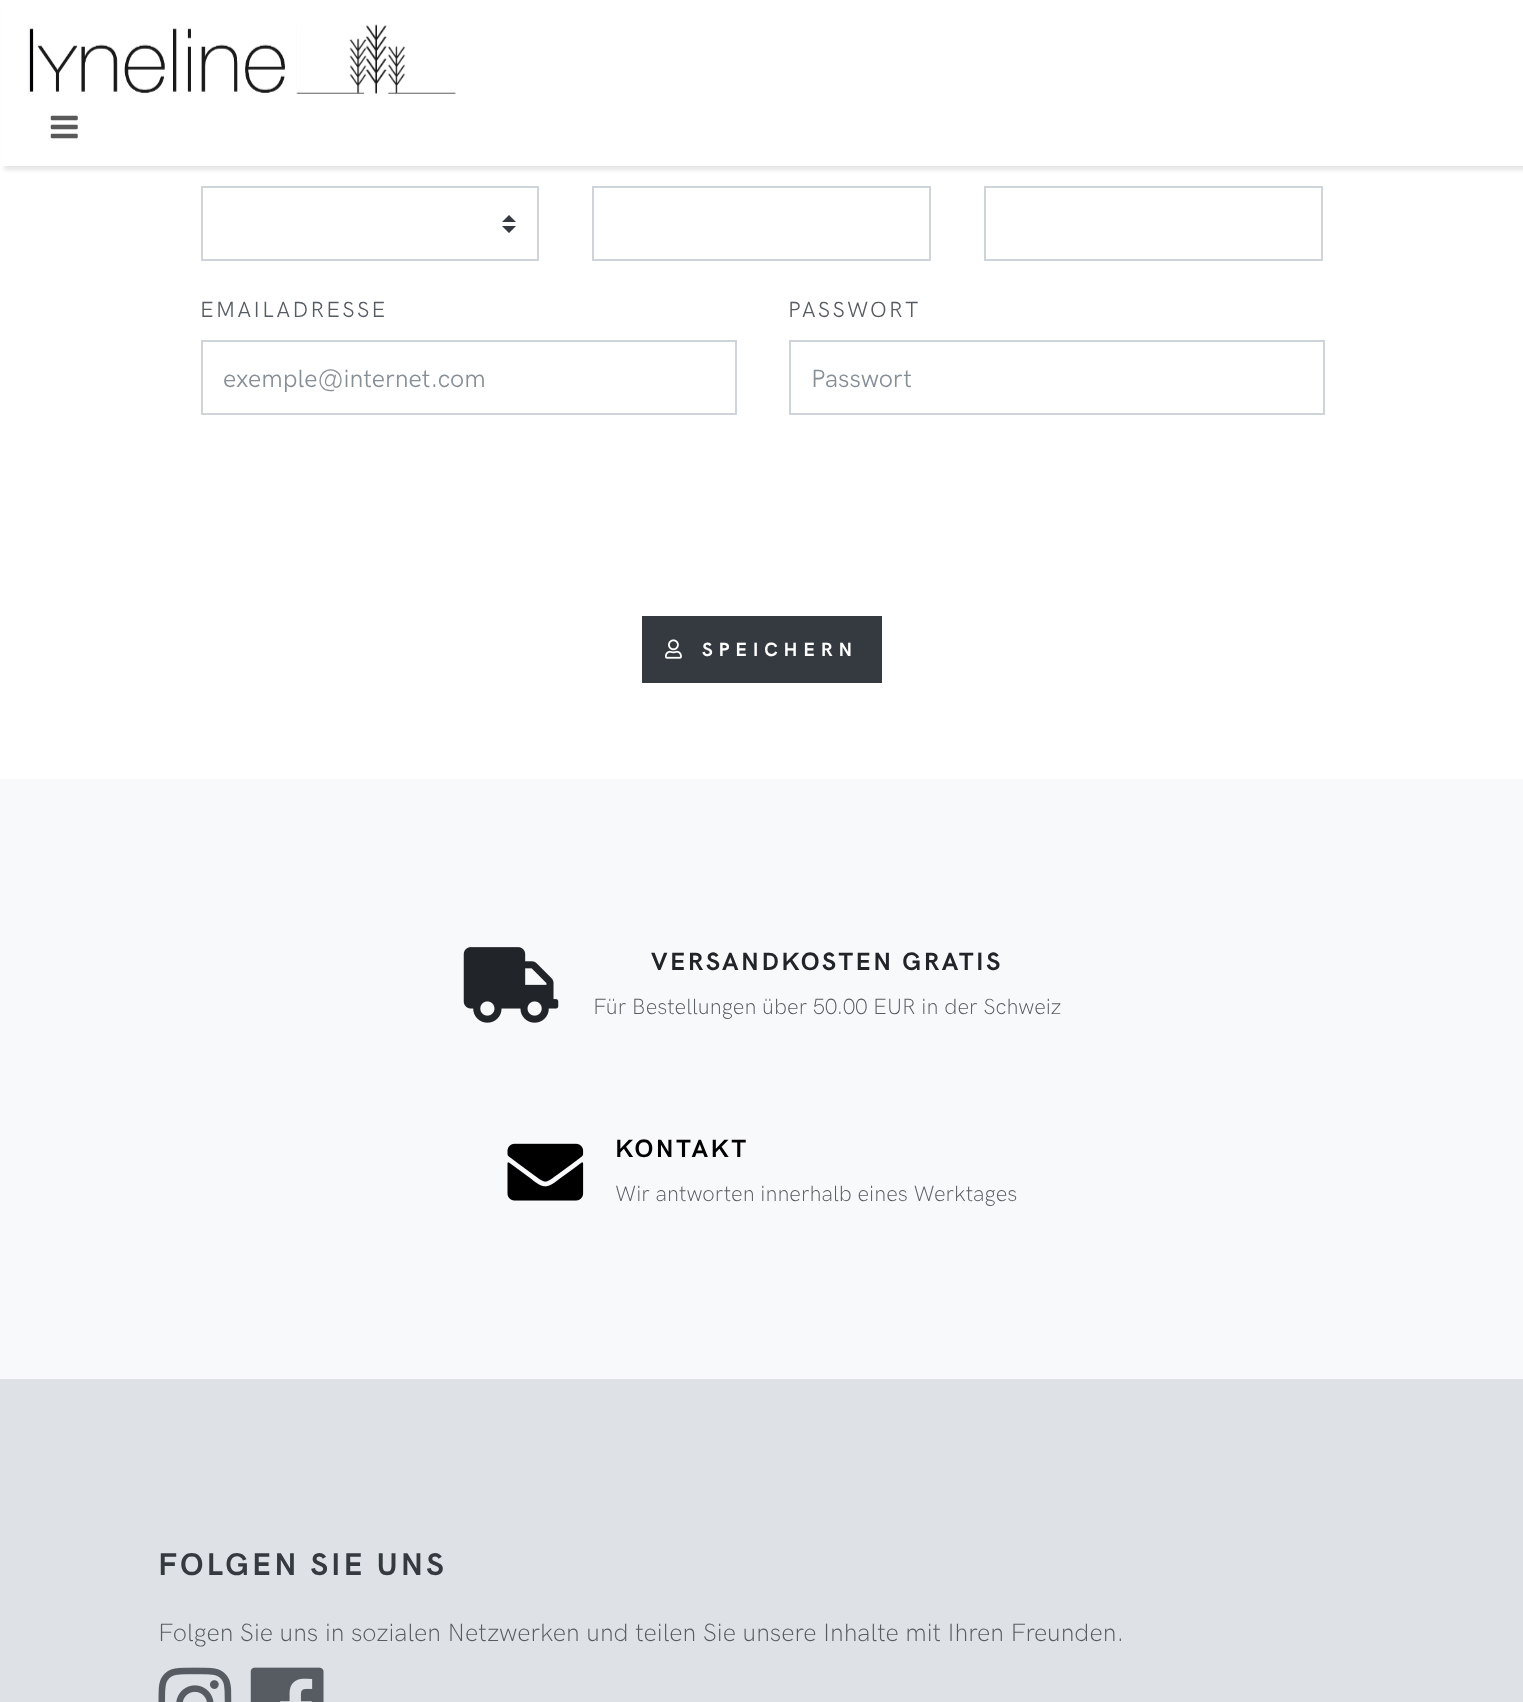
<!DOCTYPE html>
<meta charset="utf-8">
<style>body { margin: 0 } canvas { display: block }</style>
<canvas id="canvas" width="1523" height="1702"></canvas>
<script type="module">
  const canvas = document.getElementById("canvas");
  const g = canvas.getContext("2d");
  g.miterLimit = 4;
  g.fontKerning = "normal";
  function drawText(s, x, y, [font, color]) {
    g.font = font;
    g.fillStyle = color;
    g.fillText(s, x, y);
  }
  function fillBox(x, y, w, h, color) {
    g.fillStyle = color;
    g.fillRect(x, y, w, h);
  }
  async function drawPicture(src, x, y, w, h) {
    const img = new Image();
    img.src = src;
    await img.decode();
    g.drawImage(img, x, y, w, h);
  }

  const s1 = ["22.05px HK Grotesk", "#565C61"];
  const s2 = ["25.2px HK Grotesk", "#868E96"];
  const s3 = ["bold 19.25px HK Grotesk", "#FFFFFF"];
  const s4 = ["bold 25.2px HK Grotesk", "#212529"];
  const s5 = ["300 22.05px HK Grotesk", "#565C61"];
  const s6 = ["bold 25.2px HK Grotesk", "#000000"];
  const s7 = ["bold 31.5px HK Grotesk", "#343A40"];
  const s8 = ["300 25.2px HK Grotesk", "#565C61"];

  fillBox(0, 0, 1523, 1702, "#FFFFFF");
  g.fillStyle = "rgba(0, 0, 0, 0.1)";
  g.filter = "blur(2px)";
  g.beginPath();
  g.rect(4, 4, 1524, 166);
  g.fill();
  g.filter = "none";
  fillBox(1, 1, 1522, 165, "#FFFFFF");
  await drawPicture("pic1.png", 28, 25, 257, 69);
  await drawPicture("pic2.png", 296, 24, 160, 70);
  await drawPicture("pic3.png", 50, 115, 28, 24);
  g.fillStyle = "#343A40";
  g.beginPath();
  g.moveTo(509, 215);
  g.lineTo(502, 222);
  g.lineTo(516, 222);
  g.closePath();
  g.moveTo(509, 233);
  g.lineTo(502, 226);
  g.lineTo(516, 226);
  g.closePath();
  g.fill();
  g.strokeStyle = "#CED4DA";
  g.lineWidth = 2;
  g.strokeRect(202, 187, 336, 73);
  g.strokeRect(593, 187, 337, 73);
  g.strokeRect(985, 187, 337, 73);
  g.letterSpacing = "2.25px";
  drawText("EMAILADRESSE", 200, 317, s1);
  g.strokeRect(202, 341, 534, 73);
  g.letterSpacing = "0px";
  drawText("exemple@internet.com", 223, 387, s2);
  g.letterSpacing = "2.25px";
  drawText("PASSWORT", 788, 317, s1);
  g.strokeRect(790, 341, 534, 73);
  g.letterSpacing = "0px";
  drawText("Passwort", 811, 387, s2);
  fillBox(642, 616, 240, 67, "#343A40");
  await drawPicture("pic4.png", 665, 639, 17, 20);
  g.letterSpacing = "5.75px";
  drawText("SPEICHERN", 702, 656, s3);
  fillBox(0, 779, 1523, 600, "#F8F9FA");
  await drawPicture("pic5.png", 463, 947, 96, 76);
  g.letterSpacing = "2.5px";
  drawText("VERSANDKOSTEN GRATIS", 651, 970, s4);
  g.letterSpacing = "0px";
  drawText("Für Bestellungen über 50.00 EUR in der Schweiz", 593, 1014, s5);
  await drawPicture("pic6.png", 507, 1143, 77, 58);
  g.letterSpacing = "2.5px";
  drawText("KONTAKT", 615, 1157, s6);
  g.letterSpacing = "0px";
  drawText("Wir antworten innerhalb eines Werktages", 615, 1201, s5);
  fillBox(0, 1379, 1523, 323, "#DEE2E6");
  g.letterSpacing = "3.1px";
  drawText("FOLGEN SIE UNS", 158, 1575, s7);
  g.letterSpacing = "0px";
  drawText("Folgen Sie uns in sozialen Netzwerken und teilen Sie unsere Inhalte mit Ihren Freunden.", 158, 1641, s8);
  await drawPicture("pic7.png", 158, 1667, 74, 35);
  await drawPicture("pic8.png", 250, 1667, 74, 35);
</script>
